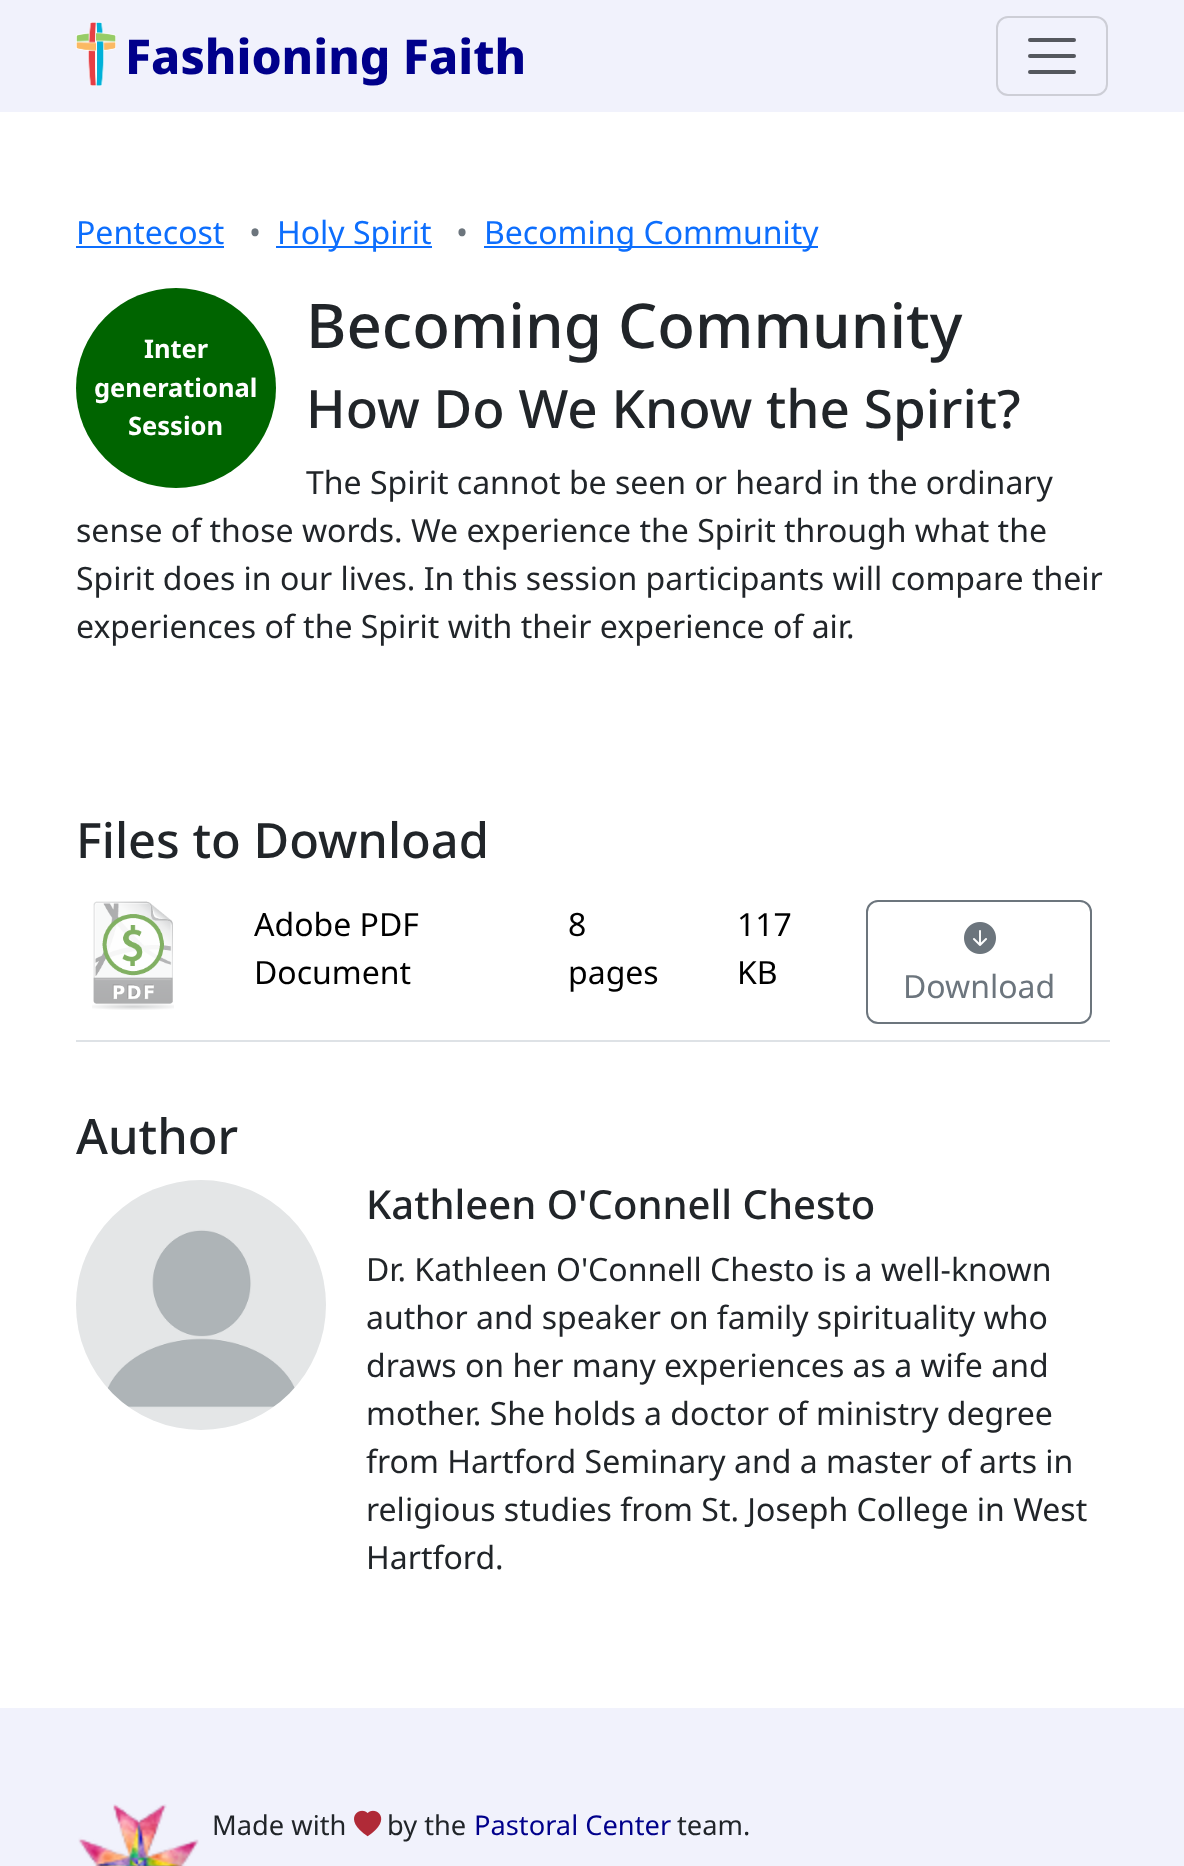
<!DOCTYPE html>
<meta charset="utf-8">
<style>body { margin: 0 } canvas { display: block }</style>
<canvas id="canvas" width="1184" height="1866"></canvas>
<script type="module">
  const canvas = document.getElementById("canvas");
  const g = canvas.getContext("2d");
  g.miterLimit = 4;
  g.fontKerning = "normal";
  function drawText(s, x, y, [font, color]) {
    g.font = font;
    g.fillStyle = color;
    g.fillText(s, x, y);
  }
  function fillBox(x, y, w, h, color) {
    g.fillStyle = color;
    g.fillRect(x, y, w, h);
  }
  async function drawPicture(src, x, y, w, h) {
    const img = new Image();
    img.src = src;
    await img.decode();
    g.drawImage(img, x, y, w, h);
  }

  const s1 = ["800 48px Noto Sans", "#00008B"];
  const s2 = ["32px Noto Sans", "#0D6EFD"];
  const s3 = ["32px Noto Sans", "#6C757D"];
  const s4 = ["500 61.75px Noto Sans", "#212529"];
  const s5 = ["bold 25.5px Noto Sans", "#FFFFFF"];
  const s6 = ["500 53px Noto Sans", "#212529"];
  const s7 = ["32px Noto Sans", "#212529"];
  const s8 = ["500 48.75px Noto Sans", "#212529"];
  const s9 = ["32px Noto Sans", "#000000"];
  const s10 = ["500 40px Noto Sans", "#212529"];
  const s11 = ["27.25px Noto Sans", "#212529"];
  const s12 = ["27.25px Noto Sans", "#00008B"];

  fillBox(0, 0, 1184, 1866, "#FFFFFF");
  fillBox(0, 0, 1184, 112, "#F1F2FC");
  await drawPicture("pic1.png", 76, 22, 40, 64);
  drawText("Fashioning Faith", 125, 74, s1);
  g.beginPath();
  g.roundRect(997, 17, 110, 78, 11);
  g.strokeStyle = "#CDCED6";
  g.lineWidth = 2;
  g.stroke();
  g.beginPath();
  g.moveTo(1030, 40);
  g.lineTo(1074, 40);
  g.moveTo(1030, 56);
  g.lineTo(1074, 56);
  g.moveTo(1030, 72);
  g.lineTo(1074, 72);
  g.strokeStyle = "#55585E";
  g.lineWidth = 4;
  g.lineCap = "round";
  g.stroke();
  drawText("Pentecost", 76, 244, s2);
  fillBox(76, 246, 148, 2, "#0D6EFD");
  drawText("•", 249, 244, s3);
  fillBox(276, 246, 156, 2, "#0D6EFD");
  drawText("Holy Spirit", 277, 244, s2);
  drawText("•", 456, 244, s3);
  fillBox(484, 246, 334, 2, "#0D6EFD");
  drawText("Becoming Community", 484, 244, s2);
  drawText("Becoming Community", 306, 348, s4);
  g.fillStyle = "#006400";
  g.beginPath();
  g.arc(176, 388, 100, 0, Math.PI * 2);
  g.fill();
  drawText("Inter", 144, 358, s5);
  drawText("generational", 94, 397, s5);
  drawText("Session", 128, 435, s5);
  drawText("How Do We Know the Spirit?", 306, 428, s6);
  drawText("The Spirit cannot be seen or heard in the ordinary", 306, 494, s7);
  drawText("sense of those words. We experience the Spirit through what the", 76, 542, s7);
  drawText("Spirit does in our lives. In this session participants will compare their", 76, 590, s7);
  drawText("experiences of the Spirit with their experience of air.", 76, 638, s7);
  drawText("Files to Download", 76, 858, s8);
  await drawPicture("pic2.png", 92, 901, 82, 109);
  drawText("Adobe PDF", 254, 936, s9);
  drawText("Document", 254, 984, s9);
  drawText("8", 568, 936, s9);
  drawText("pages", 568, 984, s9);
  drawText("117", 737, 936, s9);
  drawText("KB", 737, 984, s9);
  fillBox(76, 1040, 1034, 2, "#DEE2E6");
  g.beginPath();
  g.roundRect(867, 901, 224, 122, 11);
  g.strokeStyle = "#6C757D";
  g.lineWidth = 2;
  g.stroke();
  await drawPicture("pic3.png", 964, 922, 32, 32);
  drawText("Download", 903, 998, s3);
  drawText("Author", 76, 1154, s8);
  await drawPicture("pic4.png", 76, 1180, 250, 250);
  drawText("Kathleen O'Connell Chesto", 366, 1219, s10);
  drawText("Dr. Kathleen O'Connell Chesto is a well-known", 366, 1281, s7);
  drawText("author and speaker on family spirituality who", 366, 1329, s7);
  drawText("draws on her many experiences as a wife and", 366, 1377, s7);
  drawText("mother. She holds a doctor of ministry degree", 366, 1425, s7);
  drawText("from Hartford Seminary and a master of arts in", 366, 1473, s7);
  drawText("religious studies from St. Joseph College in West", 366, 1521, s7);
  drawText("Hartford.", 366, 1569, s7);
  fillBox(0, 1708, 1184, 158, "#F1F2FC");
  await drawPicture("pic5.png", 78, 1804, 121, 62);
  drawText("Made with", 212, 1835, s11);
  await drawPicture("pic6.png", 354, 1810, 28, 27);
  drawText("by the", 387, 1835, s11);
  drawText("Pastoral Center", 474, 1835, s12);
  drawText("team.", 677, 1835, s11);
</script>
